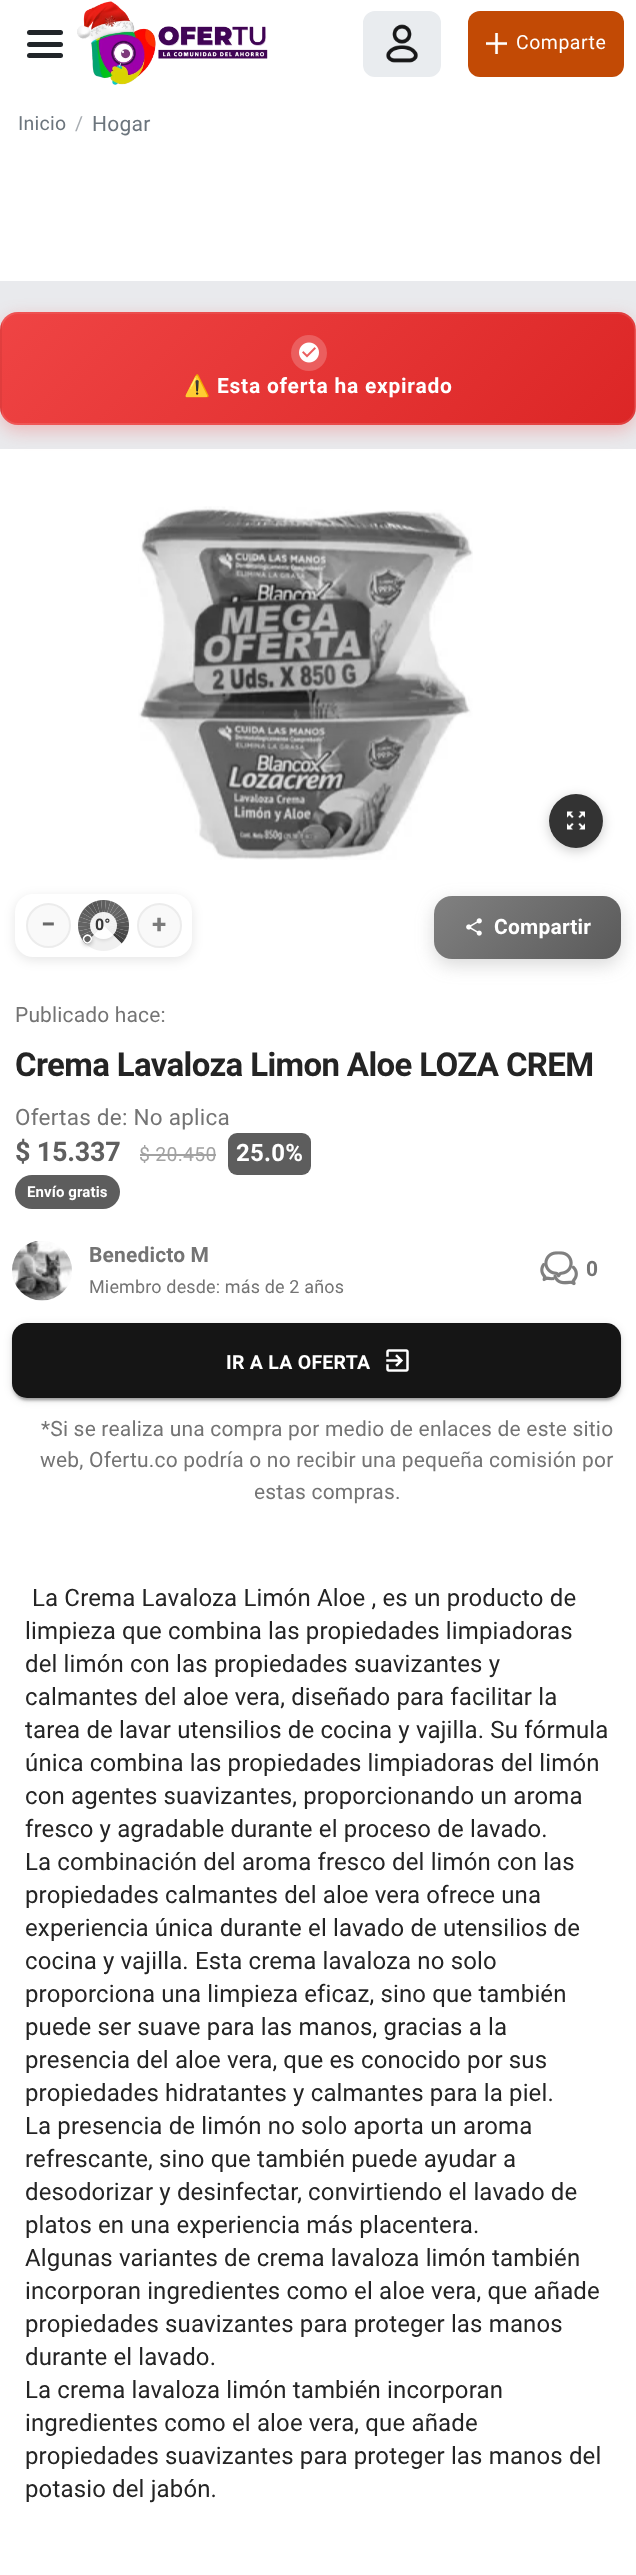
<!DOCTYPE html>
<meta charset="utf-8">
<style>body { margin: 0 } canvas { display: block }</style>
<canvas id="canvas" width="636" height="2575"></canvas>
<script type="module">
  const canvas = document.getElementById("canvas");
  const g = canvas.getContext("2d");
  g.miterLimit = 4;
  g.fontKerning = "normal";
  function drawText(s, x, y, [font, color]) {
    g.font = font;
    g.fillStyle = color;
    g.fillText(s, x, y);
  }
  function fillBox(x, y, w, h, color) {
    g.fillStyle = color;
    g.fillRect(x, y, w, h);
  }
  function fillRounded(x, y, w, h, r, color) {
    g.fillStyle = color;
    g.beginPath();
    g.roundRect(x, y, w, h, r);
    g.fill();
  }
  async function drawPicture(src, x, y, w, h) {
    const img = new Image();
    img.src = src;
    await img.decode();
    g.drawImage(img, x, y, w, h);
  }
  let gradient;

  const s1 = ["19.5px Roboto", "#FFFFFF"];
  const s2 = ["19.5px Roboto", "#6C757D"];
  const s3 = ["19.5px Roboto", "#A7ACB1"];
  const s4 = ["21px Roboto", "#6C757D"];
  const s5 = ["21px Noto Color Emoji", "#FFFFFF"];
  const s6 = ["bold 21px Roboto", "#FFFFFF"];
  const s7 = ["bold 26px Roboto", "#686868"];
  const s8 = ["bold 16px Roboto", "#363636"];
  const s9 = ["bold 26px Roboto", "#7B7B7B"];
  const s10 = ["21px Roboto", "#747474"];
  const s11 = ["bold 33px Roboto", "#242424"];
  const s12 = ["22.5px Roboto", "#747474"];
  const s13 = ["bold 27px Roboto", "#5F5F5F"];
  const s14 = ["19.5px Roboto", "#A2A2A2"];
  const s15 = ["bold 24px Roboto", "#FFFFFF"];
  const s16 = ["bold 15px Roboto", "#FFFFFF"];
  const s17 = ["bold 21px Roboto", "#747474"];
  const s18 = ["18px Roboto", "#747474"];
  const s19 = ["bold 19.5px Roboto", "#FFFFFF"];
  const s20 = ["24px Roboto", "#242424"];

  fillBox(0, 0, 636, 2575, "#FFFFFF");
  fillRounded(27, 30, 36, 5, 2.5, "#212529");
  fillRounded(27, 42, 36, 5, 2.5, "#212529");
  fillRounded(27, 53, 36, 5, 2.5, "#212529");
  await drawPicture("pic1.png", 77, 1, 191, 84);
  g.fillStyle = "#E9ECEF";
  g.beginPath();
  g.roundRect(364, 12, 76, 64, 11);
  g.fill();
  g.strokeStyle = "#E9ECEF";
  g.lineWidth = 2;
  g.stroke();
  await drawPicture("pic2.png", 386, 24, 32, 39);
  fillRounded(468, 11, 156, 66, 12, "#C24A05");
  await drawPicture("pic3.png", 486, 33, 21, 21);
  g.letterSpacing = "0.5px";
  drawText("Comparte", 516, 49, s1);
  fillBox(0, 281, 636, 168, "#E9EAED");
  g.letterSpacing = "0.25px";
  drawText("Inicio", 18, 130, s2);
  drawText("/", 75, 130, s3);
  drawText("Hogar", 92, 131, s4);
  g.fillStyle = "rgba(239, 68, 68, 0.3)";
  g.filter = "blur(9px)";
  g.beginPath();
  g.roundRect(0, 318, 636, 113, 18);
  g.fill();
  g.filter = "none";
  g.save();
  g.beginPath();
  g.roundRect(0, 312, 636, 113, 18);
  g.clip();
  gradient = g.createLinearGradient(132, 73, 504, 444);
  gradient.addColorStop(0, "#EF4444");
  gradient.addColorStop(1, "#DC2626");
  g.fillStyle = gradient;
  g.fillRect(2, 312, 624, 2);
  gradient = g.createLinearGradient(-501, 183, -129, 554);
  gradient.addColorStop(0, "#EF4444");
  gradient.addColorStop(1, "#DC2626");
  g.fillStyle = gradient;
  g.fillRect(0, 314, 2, 109);
  gradient = g.createLinearGradient(132, 183, 504, 554);
  gradient.addColorStop(0, "#EF4444");
  gradient.addColorStop(1, "#DC2626");
  g.fillStyle = gradient;
  g.fillRect(2, 314, 633, 109);
  gradient = g.createLinearGradient(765, 183, 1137, 554);
  gradient.addColorStop(0, "#EF4444");
  gradient.addColorStop(1, "#DC2626");
  g.fillStyle = gradient;
  g.fillRect(635, 324, 1, 89);
  gradient = g.createLinearGradient(132, 292, 504, 663);
  gradient.addColorStop(0, "#EF4444");
  gradient.addColorStop(1, "#DC2626");
  g.fillStyle = gradient;
  g.fillRect(2, 423, 624, 2);
  g.restore();
  g.beginPath();
  g.roundRect(1, 313, 634, 111, 17);
  g.strokeStyle = "rgba(255, 255, 255, 0.1)";
  g.stroke();
  g.fillStyle = "#EB5E5E";
  g.beginPath();
  g.arc(309, 353, 18, 0, Math.PI * 2);
  g.fill();
  await drawPicture("pic4.png", 299, 342, 20, 21);
  g.letterSpacing = "0.75px";
  drawText("⚠️", 184, 393, s5);
  drawText("Esta oferta ha expirado", 217, 393, s6);
  await drawPicture("pic5.png", 138, 506, 335, 354);
  g.save();
  g.beginPath();
  g.moveTo(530, 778);
  g.lineTo(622, 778);
  g.lineTo(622, 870);
  g.lineTo(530, 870);
  g.closePath();
  g.moveTo(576, 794);
  g.bezierCurveTo(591, 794, 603, 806, 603, 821);
  g.bezierCurveTo(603, 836, 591, 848, 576, 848);
  g.bezierCurveTo(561, 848, 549, 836, 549, 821);
  g.bezierCurveTo(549, 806, 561, 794, 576, 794);
  g.closePath();
  g.clip("evenodd");
  g.fillStyle = "rgba(0, 0, 0, 0.2)";
  g.filter = "blur(6px)";
  g.beginPath();
  g.roundRect(549, 797, 54, 54, 27);
  g.fill();
  g.filter = "none";
  g.restore();
  g.fillStyle = "rgba(0, 0, 0, 0.8)";
  g.beginPath();
  g.arc(576, 821, 27, 0, Math.PI * 2);
  g.fill();
  await drawPicture("pic6.png", 567, 811, 18, 19);
  g.fillStyle = "rgba(0, 0, 0, 0.1)";
  g.filter = "blur(6px)";
  g.beginPath();
  g.roundRect(15, 897, 177, 63, 18);
  g.fill();
  g.filter = "none";
  fillRounded(15, 894, 177, 63, 18, "#FFFFFF");
  g.fillStyle = "#F9F9F9";
  g.beginPath();
  g.arc(48.5, 925.5, 21.5, 0, Math.PI * 2);
  g.fill();
  g.strokeStyle = "#ECECEC";
  g.stroke();
  g.letterSpacing = "0px";
  drawText("−", 41, 933, s7);
  await drawPicture("pic7.png", 78, 900, 51, 51);
  g.fillStyle = "rgba(0, 0, 0, 0.3)";
  g.filter = "blur(2px)";
  g.beginPath();
  g.roundRect(83, 936, 9, 9, 4.5);
  g.fill();
  g.filter = "none";
  g.fillStyle = "#606060";
  g.beginPath();
  g.moveTo(84, 942);
  g.bezierCurveTo(80, 937.5, 87, 931.5, 91, 936);
  g.bezierCurveTo(94.5, 940.5, 87.5, 946.5, 84, 942);
  g.closePath();
  g.fill();
  g.beginPath();
  g.moveTo(84.5, 941.5);
  g.bezierCurveTo(81.5, 937.5, 87, 933, 90.5, 936.5);
  g.bezierCurveTo(93.5, 940.5, 87.5, 945, 84.5, 941.5);
  g.closePath();
  g.strokeStyle = "#FFFFFF";
  g.lineWidth = 1.5;
  g.stroke();
  g.save();
  g.beginPath();
  g.moveTo(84, 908);
  g.lineTo(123, 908);
  g.lineTo(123, 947);
  g.lineTo(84, 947);
  g.closePath();
  g.moveTo(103.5, 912);
  g.bezierCurveTo(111, 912, 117, 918, 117, 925.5);
  g.bezierCurveTo(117, 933, 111, 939, 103.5, 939);
  g.bezierCurveTo(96, 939, 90, 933, 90, 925.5);
  g.bezierCurveTo(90, 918, 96, 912, 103.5, 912);
  g.closePath();
  g.clip("evenodd");
  g.fillStyle = "rgba(0, 0, 0, 0.08)";
  g.filter = "blur(1.5px)";
  g.beginPath();
  g.roundRect(90, 914, 27, 27, 13.5);
  g.fill();
  g.filter = "none";
  g.restore();
  g.fillStyle = "rgba(255, 255, 255, 0.9)";
  g.beginPath();
  g.arc(103.5, 925.5, 13.5, 0, Math.PI * 2);
  g.fill();
  g.letterSpacing = "0.15px";
  drawText("0°", 95, 930, s8);
  g.fillStyle = "#F9F9F9";
  g.beginPath();
  g.arc(159.5, 925.5, 21.5, 0, Math.PI * 2);
  g.fill();
  g.strokeStyle = "#ECECEC";
  g.lineWidth = 2;
  g.stroke();
  g.letterSpacing = "0px";
  drawText("+", 152, 933, s9);
  g.fillStyle = "rgba(129, 129, 129, 0.3)";
  g.filter = "blur(9px)";
  g.beginPath();
  g.roundRect(434, 902, 187, 63, 18);
  g.fill();
  g.filter = "none";
  gradient = g.createLinearGradient(465, 864, 590, 990);
  gradient.addColorStop(0, "#818181");
  gradient.addColorStop(1, "#5A5A5A");
  g.fillStyle = gradient;
  g.beginPath();
  g.roundRect(434, 896, 187, 63, 18);
  g.fill();
  await drawPicture("pic8.png", 466, 918, 16, 18);
  g.letterSpacing = "0.2px";
  drawText("Compartir", 494, 934, s6);
  g.letterSpacing = "0.15px";
  drawText("Publicado hace:", 15, 1022, s10);
  g.letterSpacing = "-0.65px";
  drawText("Crema Lavaloza Limon Aloe LOZA CREM", 15, 1076, s11);
  g.letterSpacing = "0.25px";
  drawText("Ofertas de: No aplica", 15, 1125, s12);
  g.letterSpacing = "-0.25px";
  drawText("$ 15.337", 15, 1161, s13);
  g.letterSpacing = "0.25px";
  drawText("$ 20.450", 139, 1161, s14);
  fillBox(140, 1154, 76, 2, "#A2A2A2");
  fillRounded(228, 1133, 83, 42, 9, "#5D5D5D");
  drawText("25.0%", 236, 1161, s15);
  fillRounded(15, 1175, 105, 34, 17, "#5D5D5D");
  g.letterSpacing = "0.1px";
  drawText("Envío gratis", 27, 1197, s16);
  g.fillStyle = "#FAFAFA";
  g.beginPath();
  g.arc(42, 1271, 30, 0, Math.PI * 2);
  g.fill();
  await drawPicture("pic9.png", 12, 1241, 60, 60);
  g.letterSpacing = "0.15px";
  drawText("Benedicto M", 89, 1262, s17);
  drawText("Miembro desde: más de 2 años", 89, 1293, s18);
  await drawPicture("pic10.png", 540, 1251, 38, 35);
  g.letterSpacing = "0.2px";
  drawText("0", 586, 1276, s17);
  g.fillStyle = "rgba(0, 0, 0, 0.12)";
  g.filter = "blur(4px)";
  g.beginPath();
  g.roundRect(12, 1325, 609, 75, 15);
  g.fill();
  g.filter = "none";
  g.fillStyle = "rgba(0, 0, 0, 0.14)";
  g.filter = "blur(1.5px)";
  g.beginPath();
  g.roundRect(12, 1326, 609, 75, 15);
  g.fill();
  g.filter = "none";
  g.fillStyle = "rgba(0, 0, 0, 0.2)";
  g.filter = "blur(1px)";
  g.beginPath();
  g.roundRect(15, 1331, 603, 69, 12);
  g.fill();
  g.filter = "none";
  fillRounded(12, 1323, 609, 75, 15, "#151515");
  g.letterSpacing = "0.25px";
  drawText("IR A LA OFERTA", 226, 1369, s19);
  await drawPicture("pic11.png", 386, 1349, 23, 23);
  g.letterSpacing = "0.2px";
  drawText("*Si se realiza una compra por medio de enlaces de este sitio", 41, 1436, s10);
  drawText("web, Ofertu.co podría o no recibir una pequeña comisión por", 40, 1467, s10);
  drawText("estas compras.", 254, 1499, s10);
  g.letterSpacing = "0.15px";
  drawText("La Crema Lavaloza Limón Aloe , es un producto de", 32, 1606, s20);
  drawText("limpieza que combina las propiedades limpiadoras", 25, 1639, s20);
  drawText("del limón con las propiedades suavizantes y", 25, 1672, s20);
  drawText("calmantes del aloe vera, diseñado para facilitar la", 25, 1705, s20);
  drawText("tarea de lavar utensilios de cocina y vajilla. Su fórmula", 25, 1738, s20);
  drawText("única combina las propiedades limpiadoras del limón", 25, 1771, s20);
  drawText("con agentes suavizantes, proporcionando un aroma", 25, 1804, s20);
  drawText("fresco y agradable durante el proceso de lavado.", 25, 1837, s20);
  drawText("La combinación del aroma fresco del limón con las", 25, 1870, s20);
  drawText("propiedades calmantes del aloe vera ofrece una", 25, 1903, s20);
  drawText("experiencia única durante el lavado de utensilios de", 25, 1936, s20);
  drawText("cocina y vajilla. Esta crema lavaloza no solo", 25, 1969, s20);
  drawText("proporciona una limpieza eficaz, sino que también", 25, 2002, s20);
  drawText("puede ser suave para las manos, gracias a la", 25, 2035, s20);
  drawText("presencia del aloe vera, que es conocido por sus", 25, 2068, s20);
  drawText("propiedades hidratantes y calmantes para la piel.", 25, 2101, s20);
  drawText("La presencia de limón no solo aporta un aroma", 25, 2134, s20);
  drawText("refrescante, sino que también puede ayudar a", 25, 2167, s20);
  drawText("desodorizar y desinfectar, convirtiendo el lavado de", 25, 2200, s20);
  drawText("platos en una experiencia más placentera.", 25, 2233, s20);
  drawText("Algunas variantes de crema lavaloza limón también", 25, 2266, s20);
  drawText("incorporan ingredientes como el aloe vera, que añade", 25, 2299, s20);
  drawText("propiedades suavizantes para proteger las manos", 25, 2332, s20);
  drawText("durante el lavado.", 25, 2365, s20);
  drawText("La crema lavaloza limón también incorporan", 25, 2398, s20);
  drawText("ingredientes como el aloe vera, que añade", 25, 2431, s20);
  drawText("propiedades suavizantes para proteger las manos del", 25, 2464, s20);
  drawText("potasio del jabón.", 25, 2497, s20);
</script>
